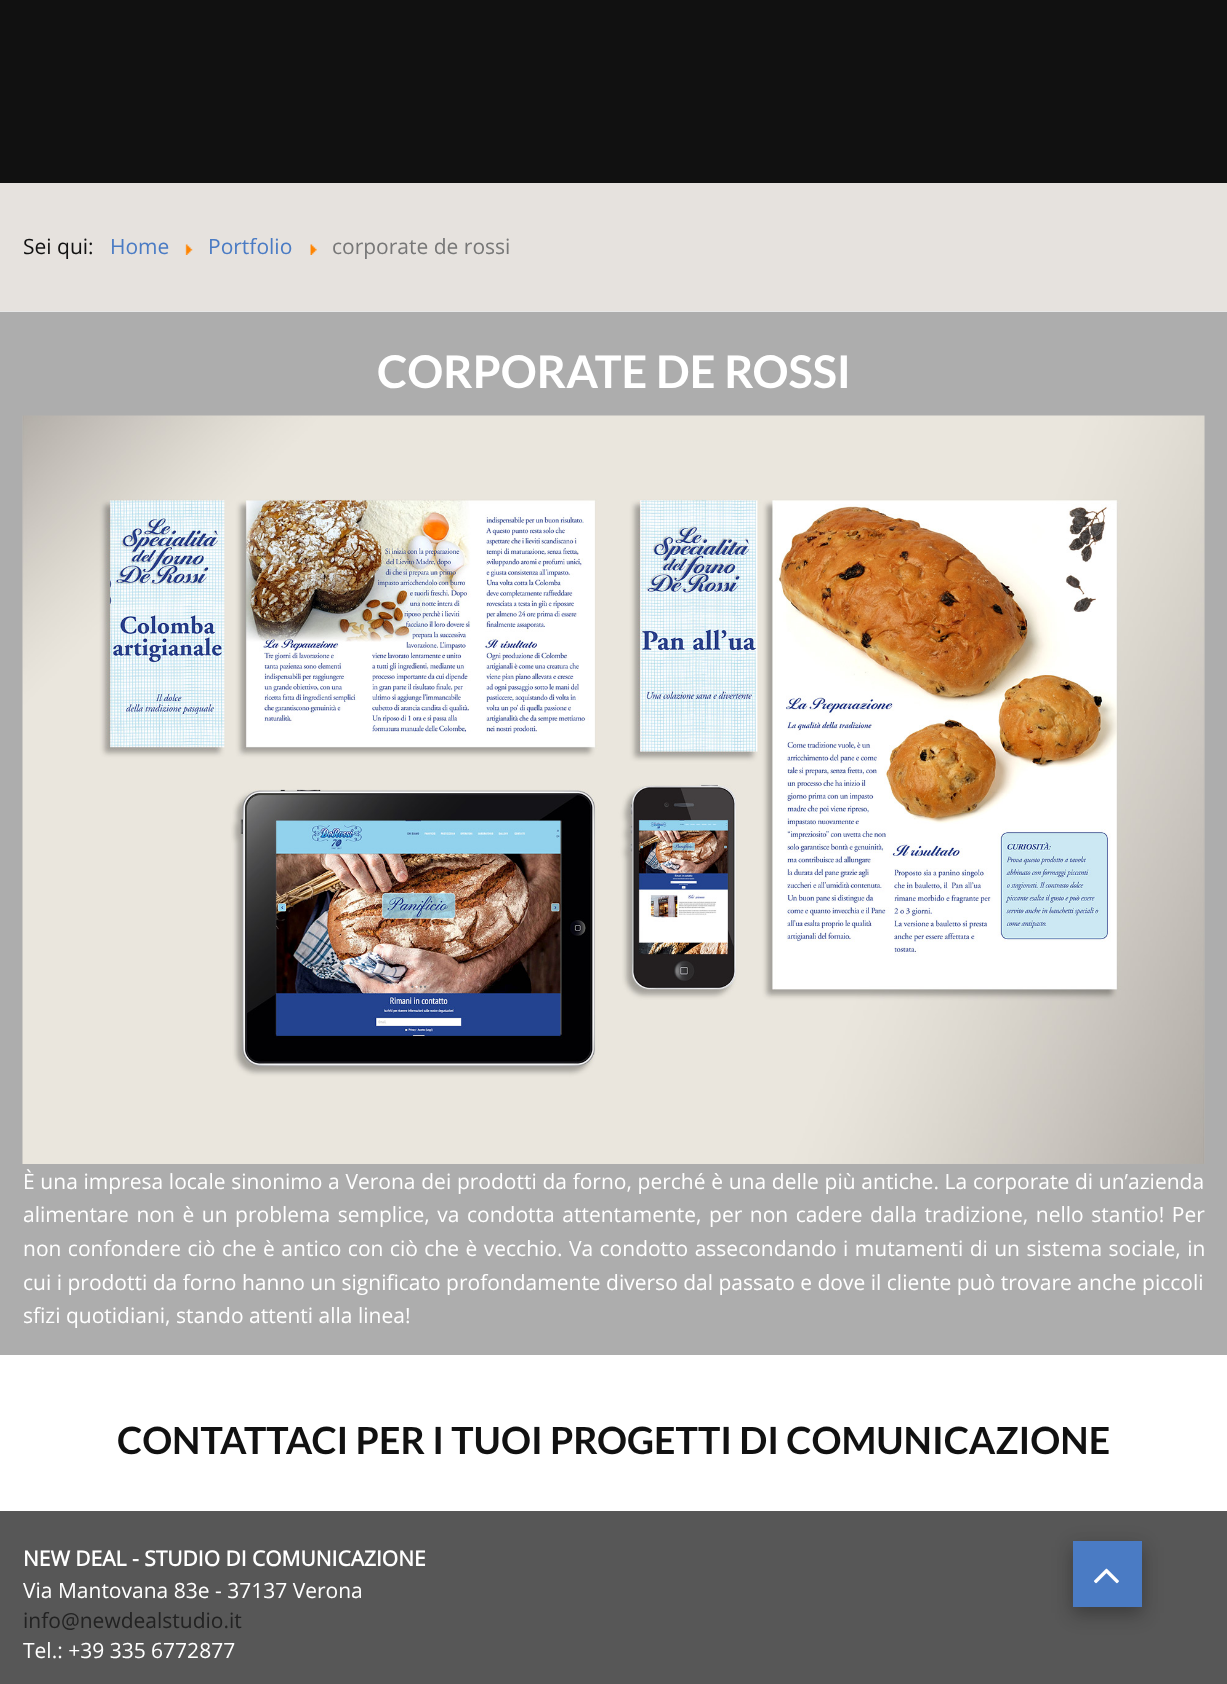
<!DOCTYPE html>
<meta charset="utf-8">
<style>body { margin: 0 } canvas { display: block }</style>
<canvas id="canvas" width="1227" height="1684"></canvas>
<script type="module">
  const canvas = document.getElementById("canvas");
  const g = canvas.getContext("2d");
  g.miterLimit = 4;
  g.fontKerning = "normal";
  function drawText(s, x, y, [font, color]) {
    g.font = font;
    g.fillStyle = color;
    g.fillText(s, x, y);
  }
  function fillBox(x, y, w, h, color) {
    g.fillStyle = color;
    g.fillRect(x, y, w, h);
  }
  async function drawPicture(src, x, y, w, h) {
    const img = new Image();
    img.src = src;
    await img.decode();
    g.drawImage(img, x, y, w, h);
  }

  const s1 = ["21px Open Sans", "#111111"];
  const s2 = ["21px Open Sans", "#4A7BC4"];
  const s3 = ["21px Open Sans", "#777777"];
  const s4 = ["bold 45px Lato", "#FFFFFF"];
  const s5 = ["21px Open Sans", "#FFFFFF"];
  const s6 = ["bold 37.5px Lato", "#111111"];
  const s7 = ["bold 21px Open Sans", "#FFFFFF"];
  const s8 = ["21px Open Sans", "#222222"];

  fillBox(0, 0, 1227, 1684, "#FFFFFF");
  fillBox(0, 0, 1227, 183, "#111111");
  fillBox(0, 183, 1227, 128, "#E6E2DE");
  fillBox(0, 311, 1227, 1, "#E7E7E7");
  drawText("Sei qui:", 23, 254, s1);
  drawText("Home", 110, 254, s2);
  await drawPicture("pic1.png", 185, 244, 8, 11);
  drawText("Portfolio", 208, 254, s2);
  await drawPicture("pic2.png", 310, 244, 7, 11);
  drawText("corporate de rossi", 332, 254, s3);
  fillBox(0, 312, 1227, 1043, "#ADADAD");
  drawText("CORPORATE DE ROSSI", 377, 388, s4);
  await drawPicture("pic3.png", 22, 415, 1183, 749);
  g.wordSpacing = "0.25px";
  drawText("È una impresa locale sinonimo a Verona dei prodotti da forno, perché è una delle più antiche. La corporate di un’azienda", 23, 1189, s5);
  g.wordSpacing = "2.1px";
  drawText("alimentare non è un problema semplice, va condotta attentamente, per non cadere dalla tradizione, nello stantio! Per", 23, 1222, s5);
  g.wordSpacing = "1px";
  drawText("non confondere ciò che è antico con ciò che è vecchio. Va condotto assecondando i mutamenti di un sistema sociale, in", 23, 1256, s5);
  g.wordSpacing = "0px";
  drawText("cui i prodotti da forno hanno un significato profondamente diverso dal passato e dove il cliente può trovare anche piccoli", 23, 1290, s5);
  drawText("sfizi quotidiani, stando attenti alla linea!", 23, 1323, s5);
  drawText("CONTATTACI PER I TUOI PROGETTI DI COMUNICAZIONE", 117, 1454, s6);
  fillBox(0, 1511, 1227, 173, "#575757");
  drawText("NEW DEAL - STUDIO DI COMUNICAZIONE", 23, 1566, s7);
  drawText("Via Mantovana 83e - 37137 Verona", 23, 1598, s5);
  drawText("info@newdealstudio.it", 23, 1628, s8);
  drawText("Tel.: +39 335 6772877", 23, 1658, s5);
  g.fillStyle = "rgba(0, 0, 0, 0.15)";
  g.filter = "blur(11px)";
  g.beginPath();
  g.rect(1073, 1547, 69, 66);
  g.fill();
  g.filter = "none";
  g.fillStyle = "rgba(0, 0, 0, 0.18)";
  g.filter = "blur(8px)";
  g.beginPath();
  g.rect(1073, 1548, 69, 66);
  g.fill();
  g.filter = "none";
  fillBox(1073, 1541, 69, 66, "#4A7BC4");
  await drawPicture("pic4.png", 1094, 1568, 25, 16);
</script>
